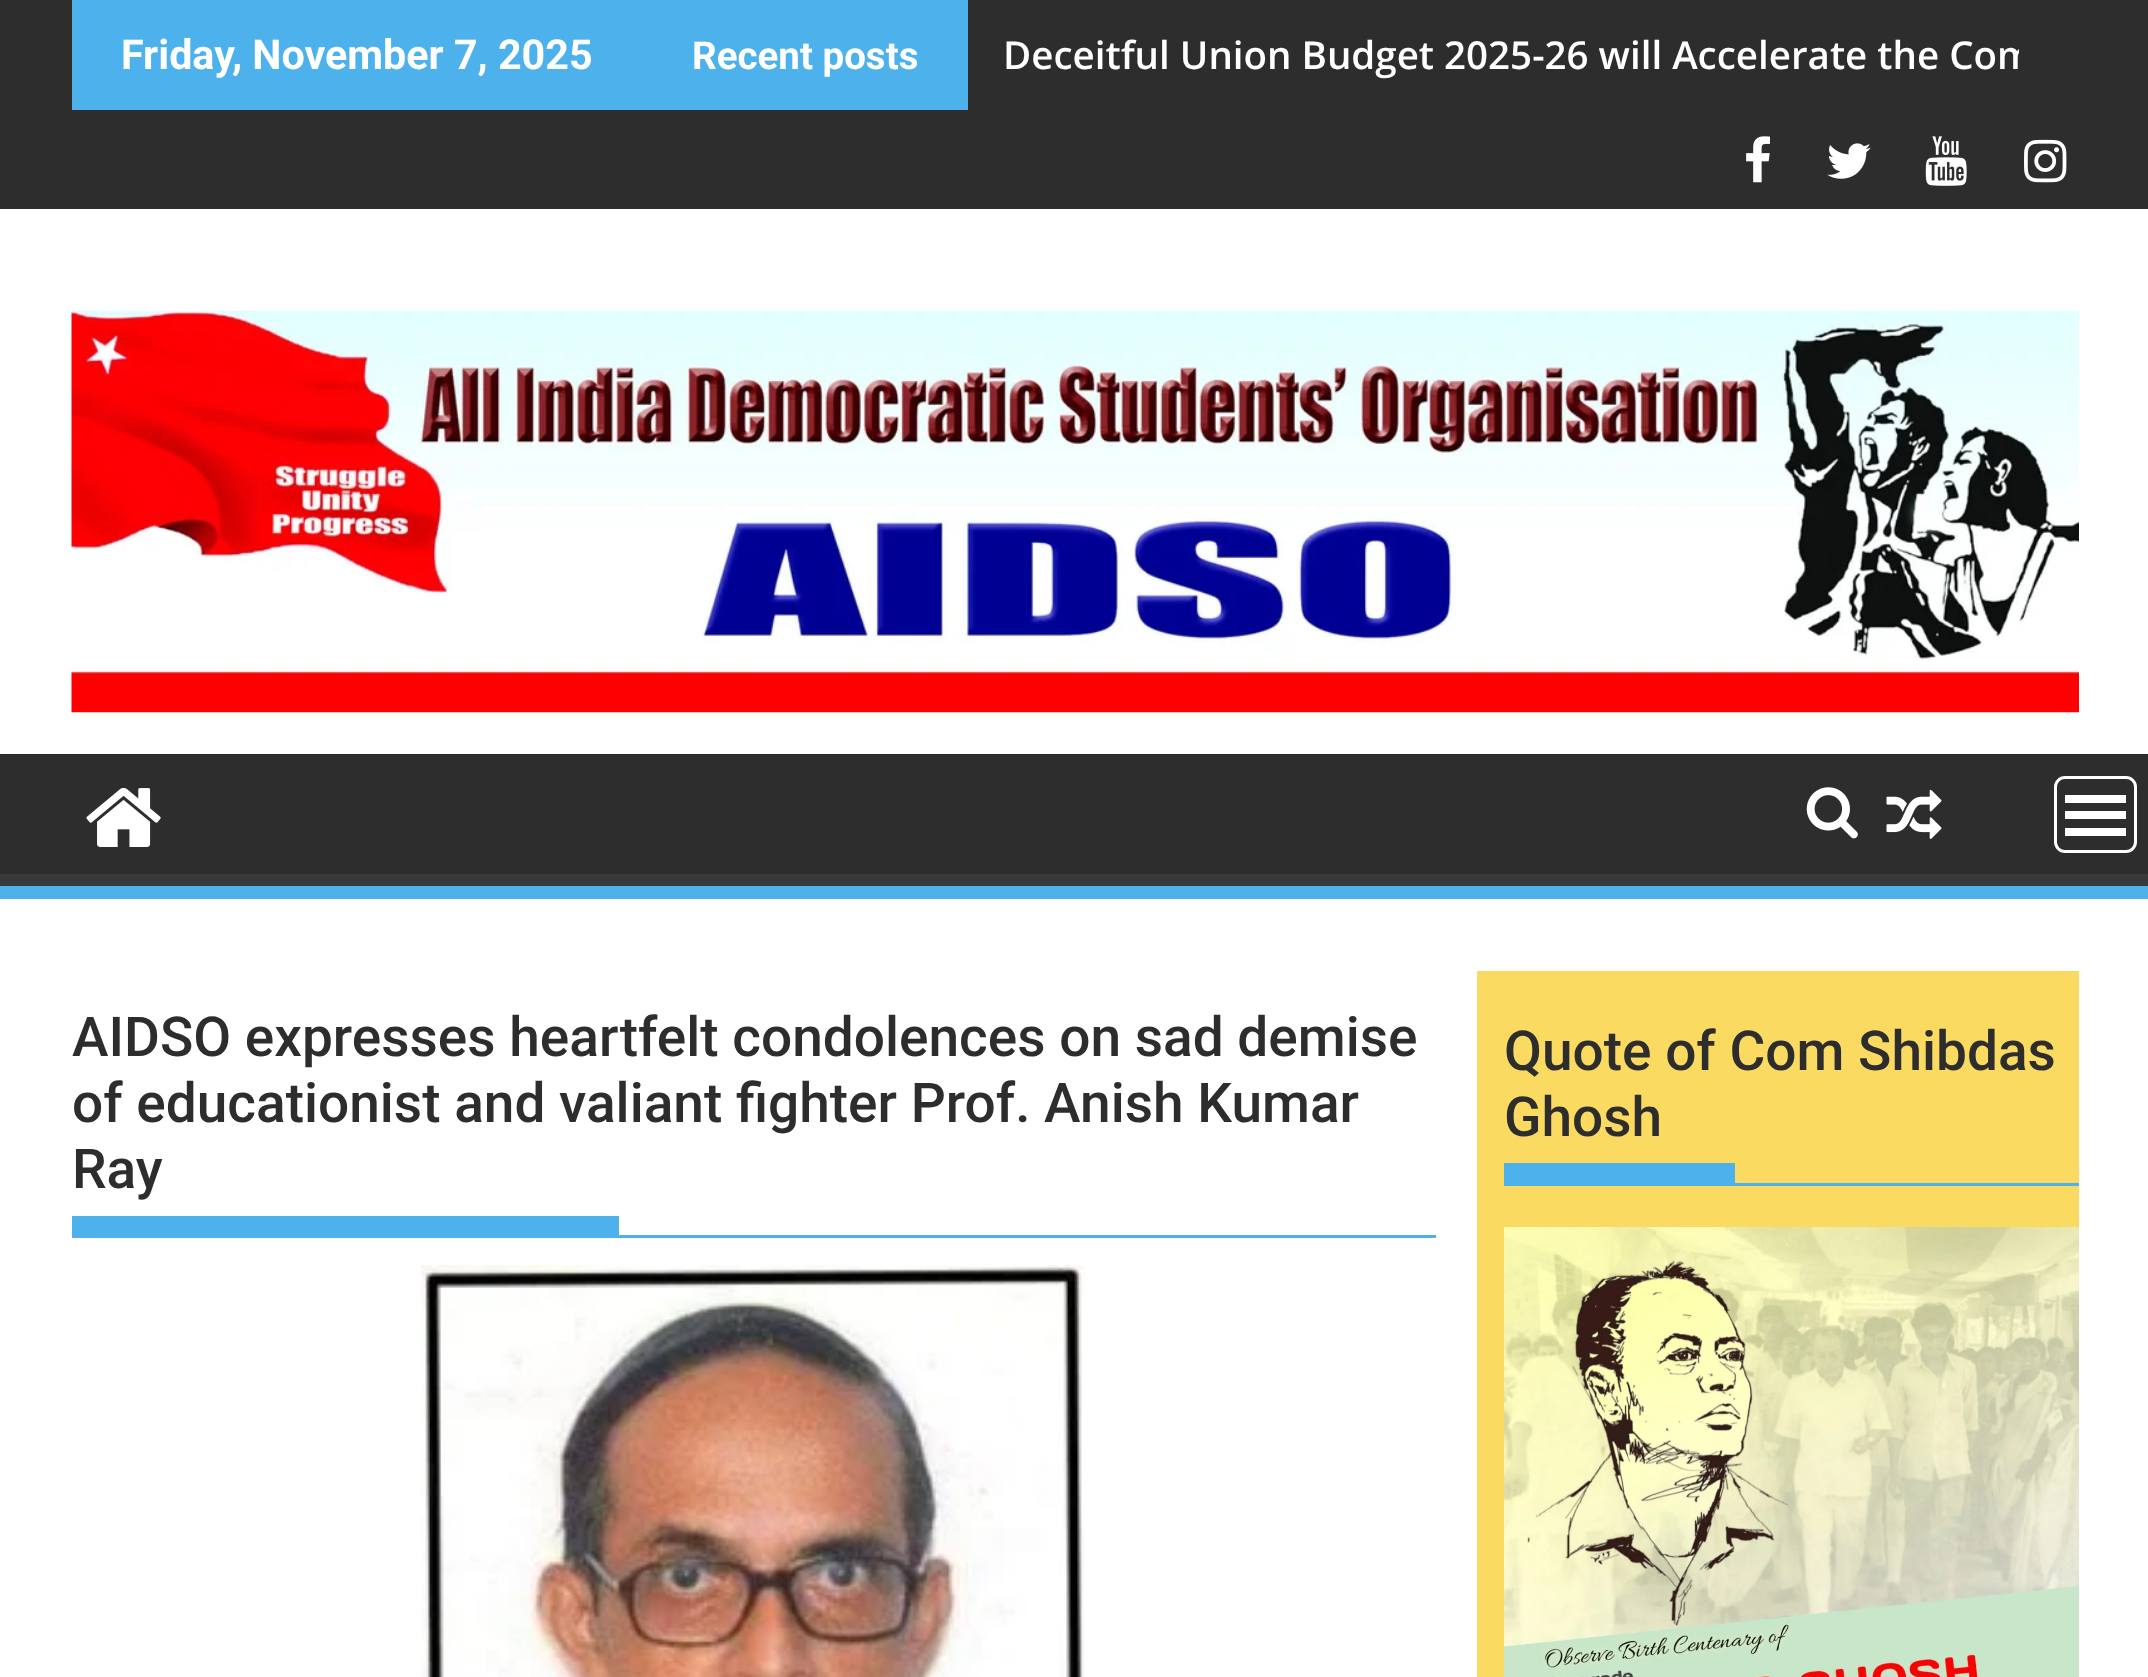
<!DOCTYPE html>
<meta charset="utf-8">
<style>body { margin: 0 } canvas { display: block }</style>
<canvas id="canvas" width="2148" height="1677"></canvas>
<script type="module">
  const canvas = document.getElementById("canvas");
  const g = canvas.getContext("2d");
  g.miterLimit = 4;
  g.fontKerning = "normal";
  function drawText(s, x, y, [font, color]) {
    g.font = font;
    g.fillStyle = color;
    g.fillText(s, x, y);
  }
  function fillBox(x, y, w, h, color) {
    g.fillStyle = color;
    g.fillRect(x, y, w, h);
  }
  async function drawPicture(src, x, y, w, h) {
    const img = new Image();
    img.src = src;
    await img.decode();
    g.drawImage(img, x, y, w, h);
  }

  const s1 = ["bold 41.25px Roboto", "#FFFFFF"];
  const s2 = ["bold 38.5px Roboto", "#FFFFFF"];
  const s3 = ["600 38.5px Open Sans", "#FFFFFF"];
  const s4 = ["500 55px Roboto", "#2D2D2D"];

  fillBox(0, 0, 2148, 1677, "#FFFFFF");
  fillBox(0, 0, 2148, 209, "#2D2D2D");
  fillBox(72, 0, 896, 110, "#4DB2EC");
  drawText("Friday, November 7, 2025", 121, 69, s1);
  drawText("Recent posts", 692, 69, s2);
  g.save();
  g.beginPath();
  g.rect(968, 0, 1051, 110);
  g.clip();
  drawText("Deceitful Union Budget 2025-26 will Accelerate the Com", 1003, 69, s3);
  g.restore();
  await drawPicture("pic1.png", 1746, 136, 24, 47);
  await drawPicture("pic2.png", 1827, 143, 44, 36);
  await drawPicture("pic3.png", 1925, 136, 42, 50);
  await drawPicture("pic4.png", 2024, 139, 43, 44);
  await drawPicture("pic5.png", 71, 310, 2008, 403);
  fillBox(0, 754, 2148, 120, "#2D2D2D");
  g.save();
  g.beginPath();
  g.rect(0, 754, 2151, 132);
  g.clip();
  g.fillStyle = "#393939";
  g.beginPath();
  g.moveTo(-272, 481);
  g.lineTo(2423, 481);
  g.lineTo(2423, 1158);
  g.lineTo(-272, 1158);
  g.closePath();
  g.moveTo(-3, 737);
  g.lineTo(2148, 737);
  g.bezierCurveTo(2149, 737, 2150, 738, 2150, 740);
  g.lineTo(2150, 872);
  g.bezierCurveTo(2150, 873, 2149, 874, 2148, 874);
  g.lineTo(-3, 874);
  g.bezierCurveTo(-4, 874, -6, 873, -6, 872);
  g.lineTo(-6, 740);
  g.bezierCurveTo(-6, 738, -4, 737, -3, 737);
  g.closePath();
  g.fill("evenodd");
  g.restore();
  fillBox(0, 886, 2148, 13, "#4DB2EC");
  await drawPicture("pic6.png", 86, 787, 75, 60);
  await drawPicture("pic7.png", 1806, 787, 52, 52);
  await drawPicture("pic8.png", 1886, 789, 56, 50);
  g.beginPath();
  g.roundRect(2055.5, 777.5, 80, 74, 9.5);
  g.strokeStyle = "#FFFFFF";
  g.lineWidth = 3;
  g.stroke();
  fillBox(2065, 828, 61, 8, "#FFFFFF");
  fillBox(2065, 811, 61, 8, "#FFFFFF");
  fillBox(2065, 795, 61, 8, "#FFFFFF");
  fillBox(72, 1235, 1364, 3, "#4DB2EC");
  drawText("AIDSO expresses heartfelt condolences on sad demise", 72, 1056, s4);
  drawText("of educationist and valiant fighter Prof. Anish Kumar", 72, 1122, s4);
  drawText("Ray", 72, 1188, s4);
  fillBox(72, 1216, 547, 19, "#4DB2EC");
  await drawPicture("pic9.png", 420, 1265, 665, 412);
  fillBox(1477, 971, 602, 706, "#FBDA61");
  fillBox(1504, 1183, 575, 3, "#4DB2EC");
  drawText("Quote of Com Shibdas", 1504, 1070, s4);
  drawText("Ghosh", 1504, 1136, s4);
  fillBox(1504, 1163, 231, 20, "#4DB2EC");
  await drawPicture("pic10.png", 1504, 1227, 575, 450);
</script>
